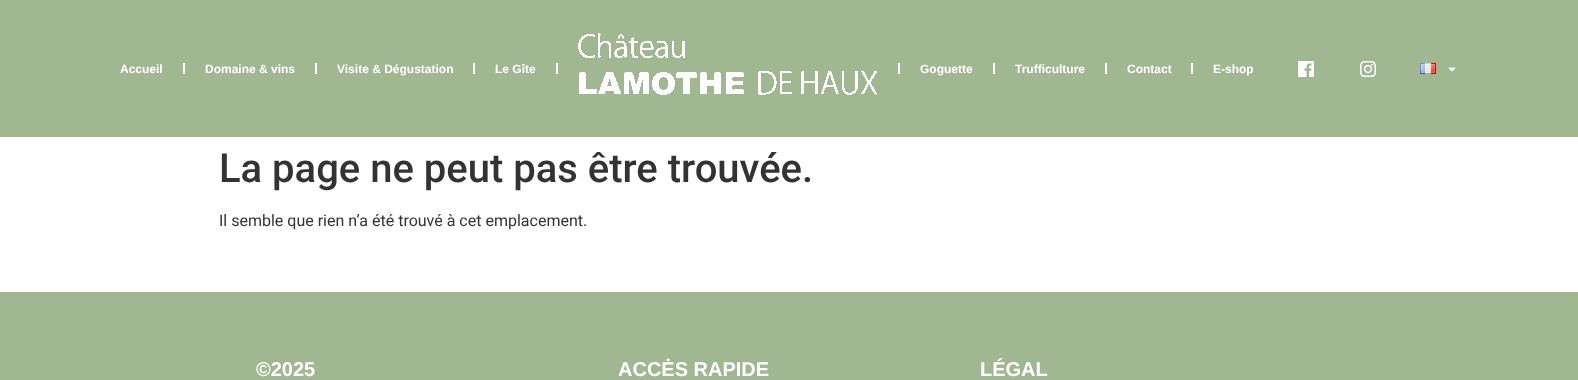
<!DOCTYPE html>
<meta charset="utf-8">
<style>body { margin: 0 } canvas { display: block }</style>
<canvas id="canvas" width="1578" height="380"></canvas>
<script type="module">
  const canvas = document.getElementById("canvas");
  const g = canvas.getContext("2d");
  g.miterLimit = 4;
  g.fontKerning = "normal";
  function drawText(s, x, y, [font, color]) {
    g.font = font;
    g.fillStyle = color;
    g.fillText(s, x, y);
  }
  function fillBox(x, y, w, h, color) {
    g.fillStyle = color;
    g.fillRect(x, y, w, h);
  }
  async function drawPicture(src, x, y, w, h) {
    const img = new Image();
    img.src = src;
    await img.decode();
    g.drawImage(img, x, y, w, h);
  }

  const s1 = ["bold 12px Liberation Sans", "#FFFFFF"];
  const s2 = ["500 40px Roboto", "#333333"];
  const s3 = ["16px Roboto", "#333333"];
  const s4 = ["bold 20px Liberation Sans", "#FFFFFF"];

  fillBox(0, 0, 1578, 380, "#FFFFFF");
  fillBox(0, 0, 1578, 137, "#A0B792");
  drawText("Accueil", 120, 73, s1);
  fillBox(183, 63, 2, 11, "#FFFFFF");
  drawText("Domaine & vins", 205, 73, s1);
  fillBox(315, 63, 2, 11, "#FFFFFF");
  drawText("Visite & Dégustation", 337, 73, s1);
  fillBox(473, 63, 2, 11, "#FFFFFF");
  drawText("Le Gîte", 495, 73, s1);
  fillBox(556, 63, 2, 11, "#FFFFFF");
  await drawPicture("pic1.png", 578, 33, 299, 62);
  fillBox(898, 63, 2, 11, "#FFFFFF");
  drawText("Goguette", 920, 73, s1);
  fillBox(993, 63, 2, 11, "#FFFFFF");
  drawText("Trufficulture", 1015, 73, s1);
  fillBox(1105, 63, 2, 11, "#FFFFFF");
  drawText("Contact", 1127, 73, s1);
  fillBox(1191, 63, 2, 11, "#FFFFFF");
  drawText("E-shop", 1213, 73, s1);
  await drawPicture("pic2.png", 1298, 61, 16, 16);
  await drawPicture("pic3.png", 1360, 61, 16, 16);
  await drawPicture("pic4.png", 1420, 63, 16, 11);
  await drawPicture("pic5.png", 1448, 67, 8, 5);
  drawText("La page ne peut pas être trouvée.", 219, 182, s2);
  drawText("Il semble que rien n’a été trouvé à cet emplacement.", 219, 226, s3);
  fillBox(0, 292, 1578, 88, "#A0B792");
  drawText("©2025", 256, 376, s4);
  drawText("ACCĖS RAPIDE", 618, 376, s4);
  drawText("LÉGAL", 980, 376, s4);
</script>
